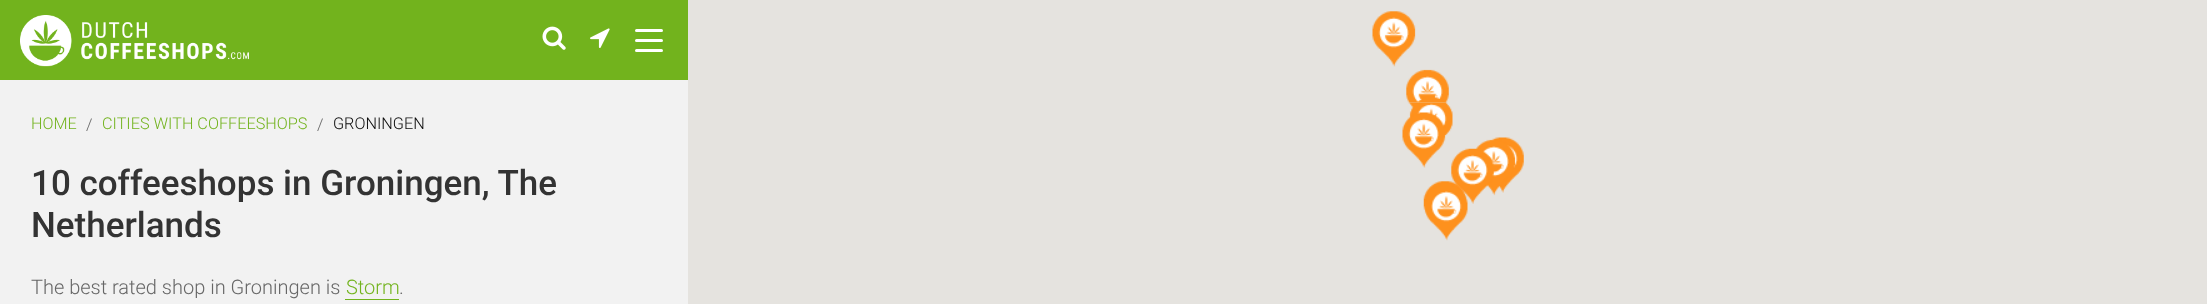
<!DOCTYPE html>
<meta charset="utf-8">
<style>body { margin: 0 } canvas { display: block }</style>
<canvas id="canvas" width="2207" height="304"></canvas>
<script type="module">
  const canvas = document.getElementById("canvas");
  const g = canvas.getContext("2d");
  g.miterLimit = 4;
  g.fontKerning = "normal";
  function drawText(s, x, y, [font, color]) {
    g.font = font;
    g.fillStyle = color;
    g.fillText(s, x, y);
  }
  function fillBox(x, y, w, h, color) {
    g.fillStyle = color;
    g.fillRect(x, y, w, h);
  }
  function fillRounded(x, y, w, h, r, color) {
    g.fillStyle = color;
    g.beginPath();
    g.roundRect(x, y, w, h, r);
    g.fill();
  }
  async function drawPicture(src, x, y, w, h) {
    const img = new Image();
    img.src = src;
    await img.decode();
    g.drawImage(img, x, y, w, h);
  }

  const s1 = ["300 16.25px Roboto", "#72B31D"];
  const s2 = ["300 16.25px Roboto", "#666666"];
  const s3 = ["300 16.25px Roboto", "#0A0A0A"];
  const s4 = ["500 35px Roboto", "#333333"];
  const s5 = ["300 20px Roboto", "#666666"];
  const s6 = ["300 20px Roboto", "#72B31D"];

  fillBox(0, 0, 2207, 304, "#F2F2F2");
  fillBox(0, 0, 688, 80, "#72B31D");
  await drawPicture("pic1.png", 20, 15, 229, 52);
  await drawPicture("pic2.png", 542, 26, 24, 24);
  await drawPicture("pic3.png", 590, 28, 20, 20);
  fillRounded(635, 29, 28, 3, 1.5, "#FFFFFF");
  fillRounded(635, 39, 28, 3, 1.5, "#FFFFFF");
  fillRounded(635, 49, 28, 3, 1.5, "#FFFFFF");
  fillBox(688, 0, 1519, 304, "#E5E3DF");
  await drawPicture("pic5.png", 1402, 102, 122, 139);
  await drawPicture("pic4.png", 1372, 11, 77, 92);
  drawText("HOME", 31, 129, s1);
  drawText("/", 86, 130, s2);
  drawText("CITIES WITH COFFEESHOPS", 102, 129, s1);
  drawText("/", 317, 130, s2);
  drawText("GRONINGEN", 333, 129, s3);
  drawText("10 coffeeshops in Groningen, The", 31, 195, s4);
  drawText("Netherlands", 31, 237, s4);
  drawText("The best rated shop in Groningen is", 31, 294, s5);
  drawText("Storm", 346, 294, s6);
  fillBox(345, 299, 54, 1, "#72B31D");
  drawText(".", 399, 294, s5);
</script>
